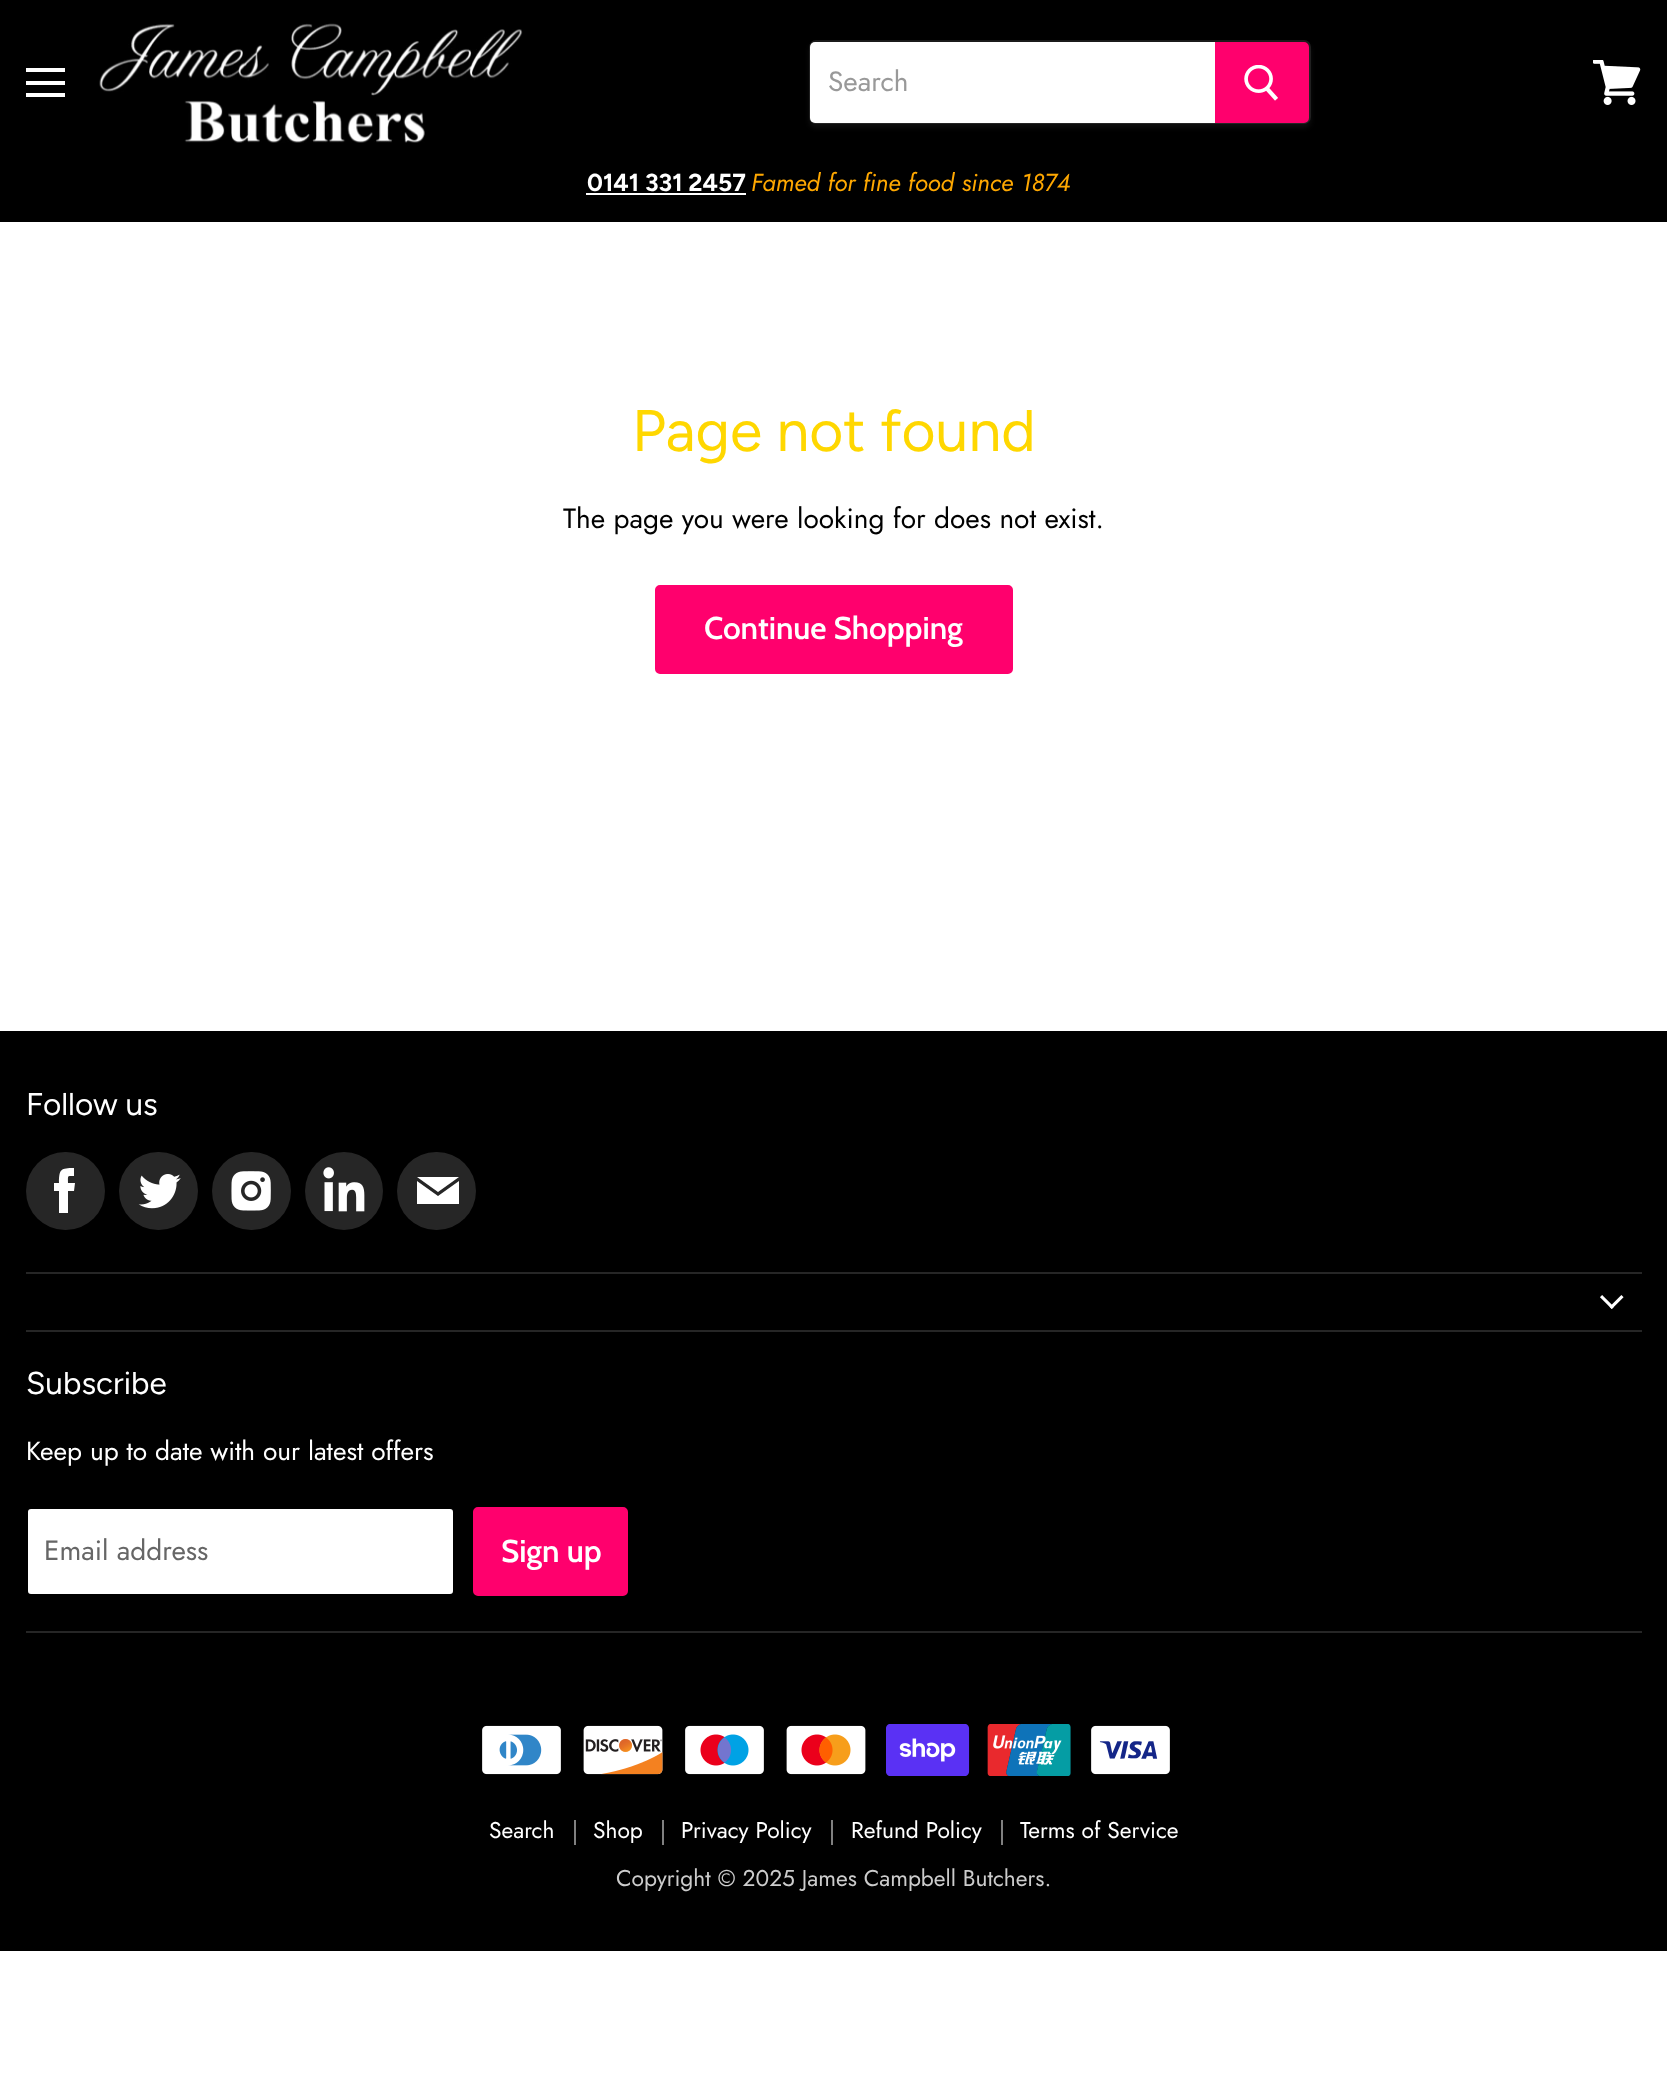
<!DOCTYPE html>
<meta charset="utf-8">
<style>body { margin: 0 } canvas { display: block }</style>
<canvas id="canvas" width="1667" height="2092"></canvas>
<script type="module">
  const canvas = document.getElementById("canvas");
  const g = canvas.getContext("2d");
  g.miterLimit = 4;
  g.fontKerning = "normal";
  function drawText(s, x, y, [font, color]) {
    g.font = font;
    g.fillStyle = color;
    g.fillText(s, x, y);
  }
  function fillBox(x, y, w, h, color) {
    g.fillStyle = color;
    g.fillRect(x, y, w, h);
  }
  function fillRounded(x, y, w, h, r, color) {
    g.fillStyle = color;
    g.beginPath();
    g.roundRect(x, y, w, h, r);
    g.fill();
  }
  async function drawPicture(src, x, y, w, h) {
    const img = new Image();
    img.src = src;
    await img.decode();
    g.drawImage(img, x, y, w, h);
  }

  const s1 = ["28px Jost", "#999999"];
  const s2 = ["bold 24.5px Figtree", "#FFFFFF"];
  const s3 = ["italic 24.5px Jost", "#FFA800"];
  const s4 = ["58.75px Figtree", "#FFD700"];
  const s5 = ["28px Jost", "#000000"];
  const s6 = ["600 31.5px Cabin", "#FFFFFF"];
  const s7 = ["31.5px Figtree", "#FFFFFF"];
  const s8 = ["26.25px Jost", "#FFFFFF"];
  const s9 = ["28px Jost", "#666666"];
  const s10 = ["22.75px Jost", "#FFFFFF"];
  const s11 = ["22.75px Jost", "#CCCCCC"];

  fillBox(0, 0, 1667, 2092, "#FFFFFF");
  fillBox(0, 0, 1667, 222, "#000000");
  fillBox(26, 68, 39, 4, "#FFFFFF");
  fillBox(26, 81, 39, 4, "#FFFFFF");
  fillBox(26, 93, 39, 4, "#FFFFFF");
  await drawPicture("pic1.png", 99, 23, 424, 120);
  g.fillStyle = "rgba(128, 128, 128, 0.11)";
  g.filter = "blur(2.5px)";
  g.beginPath();
  g.roundRect(809, 44, 502, 84, 7);
  g.fill();
  g.filter = "none";
  g.beginPath();
  g.roundRect(810, 41, 500, 82, 6);
  g.strokeStyle = "rgba(128, 128, 128, 0.2)";
  g.lineWidth = 2;
  g.stroke();
  g.fillStyle = "#FFFFFF";
  g.beginPath();
  g.roundRect(810, 42, 405, 81, [5, 0, 0, 5]);
  g.fill();
  drawText("Search", 828, 91, s1);
  g.fillStyle = "#FF006D";
  g.beginPath();
  g.roundRect(1216, 43, 92, 79, [0, 4, 4, 0]);
  g.fill();
  g.strokeStyle = "#FF006D";
  g.stroke();
  await drawPicture("pic2.png", 1244, 65, 34, 36);
  drawText("0141 331 2457", 587, 191, s2);
  fillBox(586, 193, 160, 2, "#FFFFFF");
  drawText("Famed for fine food since 1874", 751, 191, s3);
  await drawPicture("pic3.png", 1593, 60, 48, 45);
  drawText("Page not found", 632, 451, s4);
  drawText("The page you were looking for does not exist.", 563, 528, s5);
  g.fillStyle = "#FF006D";
  g.beginPath();
  g.roundRect(656, 586, 356, 87, 4);
  g.fill();
  g.stroke();
  drawText("Continue Shopping", 704, 639, s6);
  fillBox(0, 1031, 1667, 920, "#000000");
  fillBox(26, 1272, 1616, 2, "#262626");
  drawText("Follow us", 26, 1115, s7);
  fillRounded(26, 1152, 79, 78, 39, "#262626");
  g.fillStyle = "#FFFFFF";
  g.beginPath();
  g.moveTo(74, 1191);
  g.lineTo(68, 1191);
  g.lineTo(68, 1213);
  g.lineTo(59, 1213);
  g.lineTo(59, 1191);
  g.lineTo(54, 1191);
  g.lineTo(54, 1183);
  g.lineTo(59, 1183);
  g.bezierCurveTo(59, 1169, 61, 1168, 74, 1168);
  g.lineTo(74, 1176);
  g.bezierCurveTo(67, 1176, 68, 1175, 68, 1183);
  g.lineTo(75, 1183);
  g.closePath();
  g.fill("evenodd");
  fillRounded(119, 1152, 79, 78, 39, "#262626");
  await drawPicture("pic4.png", 138, 1174, 43, 35);
  fillRounded(212, 1152, 79, 78, 39, "#262626");
  await drawPicture("pic5.png", 231, 1171, 40, 40);
  g.beginPath();
  g.arc(344, 1191, 39, 0, Math.PI * 2);
  g.fill();
  await drawPicture("pic6.png", 323, 1167, 42, 45);
  fillRounded(397, 1152, 79, 78, 39, "#262626");
  g.fillStyle = "#FFFFFF";
  g.beginPath();
  g.moveTo(459, 1177);
  g.lineTo(417, 1177);
  g.lineTo(438, 1192);
  g.closePath();
  g.moveTo(438, 1196);
  g.lineTo(417, 1181);
  g.lineTo(417, 1204);
  g.lineTo(459, 1204);
  g.lineTo(459, 1181);
  g.closePath();
  g.fill("evenodd");
  fillBox(26, 1330, 1616, 2, "#262626");
  await drawPicture("pic7.png", 1600, 1295, 24, 14);
  fillBox(26, 1631, 1616, 2, "#262626");
  drawText("Subscribe", 26, 1394, s7);
  drawText("Keep up to date with our latest offers", 26, 1460, s8);
  g.beginPath();
  g.roundRect(27, 1508, 427, 87, 4);
  g.fill();
  g.strokeStyle = "#000000";
  g.stroke();
  drawText("Email address", 44, 1560, s9);
  g.fillStyle = "#FF006D";
  g.beginPath();
  g.roundRect(474, 1508, 153, 87, 4);
  g.fill();
  g.strokeStyle = "#FF006D";
  g.stroke();
  drawText("Sign up", 501, 1562, s6);
  await drawPicture("pic8.png", 482, 1725, 79, 50);
  await drawPicture("pic9.png", 583, 1725, 80, 50);
  await drawPicture("pic10.png", 685, 1725, 79, 50);
  await drawPicture("pic11.png", 786, 1725, 80, 50);
  await drawPicture("pic12.png", 886, 1724, 84, 52);
  await drawPicture("pic13.png", 987, 1724, 84, 52);
  await drawPicture("pic14.png", 1091, 1725, 79, 50);
  fillBox(574, 1820, 2, 25, "#808080");
  drawText("Search", 489, 1838, s10);
  fillBox(662, 1820, 2, 25, "#808080");
  drawText("Shop", 593, 1838, s10);
  fillBox(831, 1820, 2, 25, "#808080");
  drawText("Privacy Policy", 681, 1838, s10);
  fillBox(1001, 1820, 2, 25, "#808080");
  drawText("Refund Policy", 851, 1838, s10);
  drawText("Terms of Service", 1020, 1838, s10);
  drawText("Copyright © 2025 James Campbell Butchers.", 616, 1886, s11);
</script>
